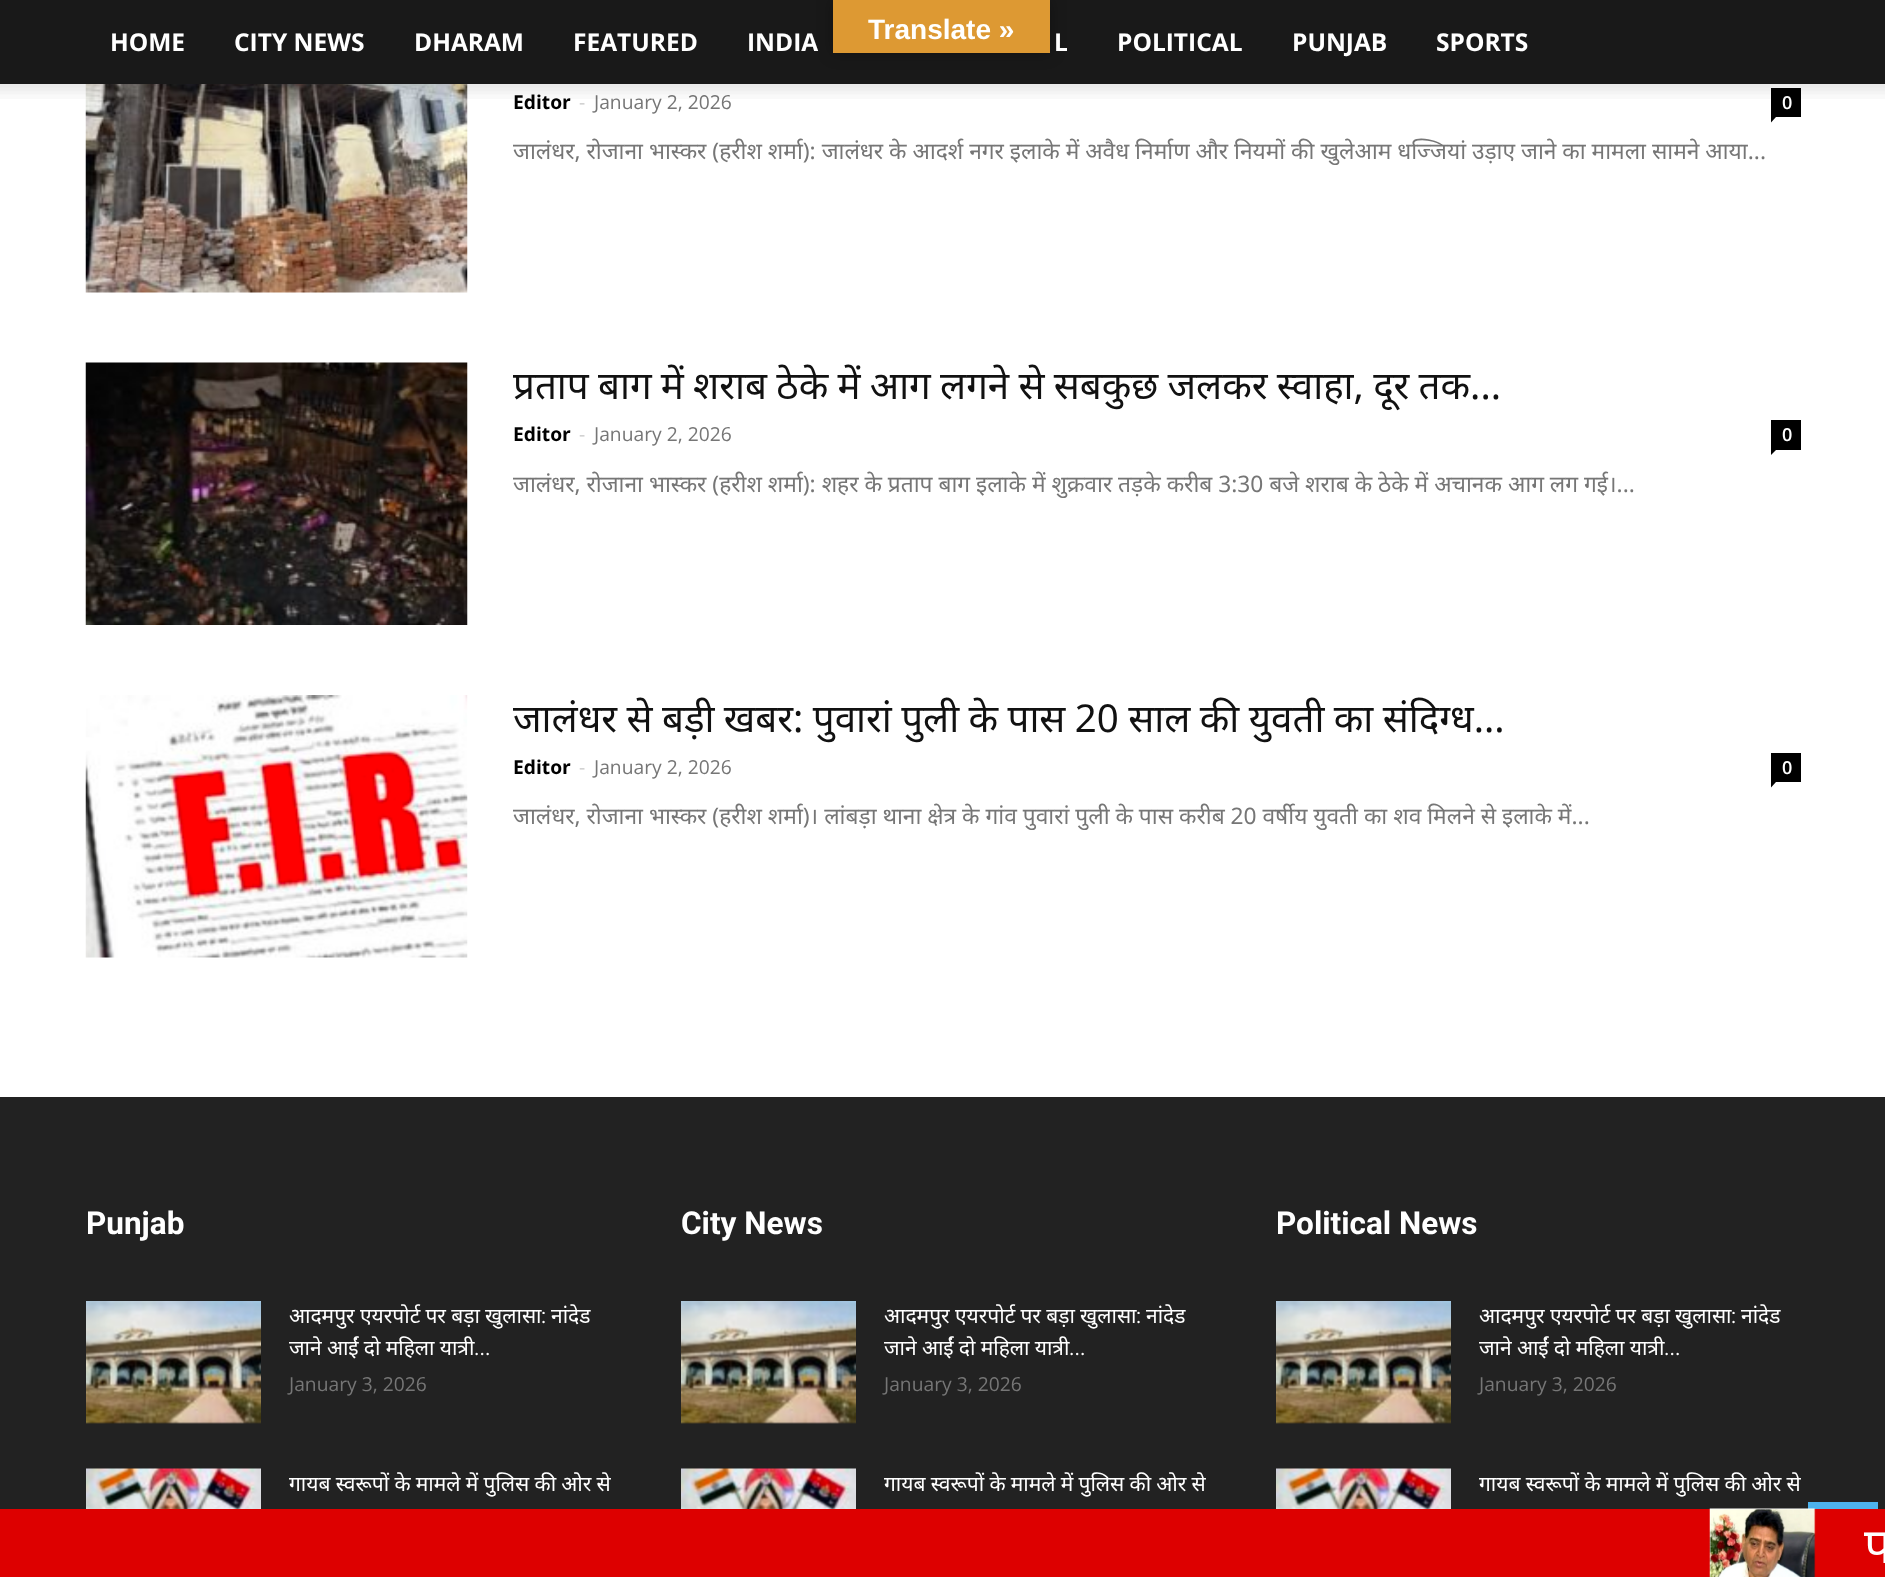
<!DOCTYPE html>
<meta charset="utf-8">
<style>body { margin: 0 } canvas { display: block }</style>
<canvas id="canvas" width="1885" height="1577"></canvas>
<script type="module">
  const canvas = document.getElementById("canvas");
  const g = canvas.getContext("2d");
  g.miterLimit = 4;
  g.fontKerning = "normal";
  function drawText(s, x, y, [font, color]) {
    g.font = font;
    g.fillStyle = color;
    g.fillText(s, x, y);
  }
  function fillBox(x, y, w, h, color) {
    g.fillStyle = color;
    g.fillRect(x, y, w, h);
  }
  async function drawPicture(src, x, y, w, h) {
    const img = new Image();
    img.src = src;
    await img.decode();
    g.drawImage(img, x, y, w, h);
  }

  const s1 = ["bold 28px Liberation Sans", "#FFFFFF"];
  const s2 = ["bold 24.5px Open Sans", "#FFFFFF"];
  const s3 = ["bold 19.25px Open Sans", "#000000"];
  const s4 = ["19.25px Open Sans", "#767676"];
  const s5 = ["600 18px Open Sans", "#FFFFFF"];
  const s6 = ["19.25px Open Sans", "#CCCCCC"];
  const s7 = ["22.75px Noto Sans", "#767676"];
  const s8 = ["38.5px Noto Sans", "#111111"];
  const s9 = ["bold 31.5px Roboto", "#FFFFFF"];
  const s10 = ["21px Noto Sans", "#FFFFFF"];
  const s11 = ["21px Roboto", "#FFFFFF"];
  const s12 = ["49px Noto Sans", "#FFFFFF"];

  fillBox(0, 0, 1885, 1577, "#FFFFFF");
  fillBox(0, 0, 1885, 84, "#191919");
  g.fillStyle = "rgba(0, 0, 0, 0.3)";
  g.filter = "blur(8px)";
  g.beginPath();
  g.rect(833, 0, 217, 53);
  g.fill();
  g.filter = "none";
  fillBox(833, 0, 217, 53, "#DD9933");
  drawText("Translate »", 868, 39, s1);
  drawText("HOME", 110, 51, s2);
  drawText("CITY NEWS", 234, 51, s2);
  drawText("DHARAM", 414, 51, s2);
  drawText("FEATURED", 573, 51, s2);
  drawText("INDIA", 747, 51, s2);
  drawText("L", 1054, 51, s2);
  drawText("POLITICAL", 1117, 51, s2);
  drawText("PUNJAB", 1292, 51, s2);
  drawText("SPORTS", 1436, 51, s2);
  await drawPicture("pic2.png", 85, 84, 383, 209);
  drawText("Editor", 513, 109, s3);
  drawText("January 2, 2026", 594, 109, s4);
  fillBox(1771, 88, 30, 29, "#000000");
  drawText("0", 1782, 109, s5);
  await drawPicture("pic1.png", 0, 84, 1885, 15);
  drawText("-", 579, 109, s6);
  g.fillStyle = "#000000";
  g.beginPath();
  g.moveTo(1771, 117);
  g.lineTo(1776, 117);
  g.lineTo(1771, 122.5);
  g.closePath();
  g.fill();
  drawText("जालंधर, रोजाना भास्कर (हरीश शर्मा): जालंधर के आदर्श नगर इलाके में अवैध निर्माण और नियमों की खुलेआम धज्जियां उड़ाए जाने का मामला सामने आया...", 513, 159, s7);
  await drawPicture("pic3.png", 85, 362, 383, 263);
  g.wordSpacing = "-0.75px";
  drawText("प्रताप बाग में शराब ठेके में आग लगने से सबकुछ जलकर स्वाहा, दूर तक...", 513, 399, s8);
  g.wordSpacing = "0px";
  drawText("Editor", 513, 441, s3);
  drawText("-", 579, 441, s6);
  drawText("January 2, 2026", 594, 441, s4);
  fillBox(1771, 420, 30, 30, "#000000");
  drawText("0", 1782, 441, s5);
  g.fillStyle = "#000000";
  g.beginPath();
  g.moveTo(1771, 450);
  g.lineTo(1776, 450);
  g.lineTo(1771, 455);
  g.closePath();
  g.fill();
  drawText("जालंधर, रोजाना भास्कर (हरीश शर्मा): शहर के प्रताप बाग इलाके में शुक्रवार तड़के करीब 3:30 बजे शराब के ठेके में अचानक आग लग गई।...", 513, 492, s7);
  await drawPicture("pic4.png", 85, 695, 383, 263);
  g.wordSpacing = "-0.6px";
  drawText("जालंधर से बड़ी खबर: पुवारां पुली के पास 20 साल की युवती का संदिग्ध...", 513, 732, s8);
  g.wordSpacing = "0px";
  drawText("Editor", 513, 774, s3);
  drawText("-", 579, 774, s6);
  drawText("January 2, 2026", 594, 774, s4);
  fillBox(1771, 753, 30, 29, "#000000");
  drawText("0", 1782, 774, s5);
  g.fillStyle = "#000000";
  g.beginPath();
  g.moveTo(1771, 782);
  g.lineTo(1776, 782);
  g.lineTo(1771, 787.5);
  g.closePath();
  g.fill();
  drawText("जालंधर, रोजाना भास्कर (हरीश शर्मा)। लांबड़ा थाना क्षेत्र के गांव पुवारां पुली के पास करीब 20 वर्षीय युवती का शव मिलने से इलाके में...", 513, 824, s7);
  fillBox(0, 1097, 1885, 412, "#222222");
  drawText("Punjab", 86, 1234, s9);
  await drawPicture("pic5.png", 86, 1301, 175, 123);
  g.wordSpacing = "-0.25px";
  drawText("आदमपुर एयरपोर्ट पर बड़ा खुलासा", 289, 1323, s10);
  g.wordSpacing = "0px";
  drawText(":", 541, 1323, s11);
  drawText("नांदेड", 551, 1323, s10);
  g.wordSpacing = "-0.25px";
  drawText("जाने आईं दो महिला यात्री", 289, 1355, s10);
  g.wordSpacing = "0px";
  drawText("...", 474, 1355, s11);
  drawText("January 3, 2026", 289, 1391, s4);
  await drawPicture("pic6.png", 86, 1468, 175, 41);
  g.wordSpacing = "-0.25px";
  drawText("गायब स्वरूपों के मामले में पुलिस की ओर से", 289, 1491, s10);
  g.wordSpacing = "0px";
  drawText("City News", 681, 1234, s9);
  await drawPicture("pic5.png", 681, 1301, 175, 123);
  g.wordSpacing = "-0.25px";
  drawText("आदमपुर एयरपोर्ट पर बड़ा खुलासा", 884, 1323, s10);
  g.wordSpacing = "0px";
  drawText(":", 1136, 1323, s11);
  drawText("नांदेड", 1146, 1323, s10);
  g.wordSpacing = "-0.25px";
  drawText("जाने आईं दो महिला यात्री", 884, 1355, s10);
  g.wordSpacing = "0px";
  drawText("...", 1069, 1355, s11);
  drawText("January 3, 2026", 884, 1391, s4);
  await drawPicture("pic6.png", 681, 1468, 175, 41);
  g.wordSpacing = "-0.25px";
  drawText("गायब स्वरूपों के मामले में पुलिस की ओर से", 884, 1491, s10);
  g.wordSpacing = "0px";
  drawText("Political News", 1276, 1234, s9);
  await drawPicture("pic5.png", 1276, 1301, 175, 123);
  g.wordSpacing = "-0.25px";
  drawText("आदमपुर एयरपोर्ट पर बड़ा खुलासा", 1479, 1323, s10);
  g.wordSpacing = "0px";
  drawText(":", 1731, 1323, s11);
  drawText("नांदेड", 1741, 1323, s10);
  g.wordSpacing = "-0.25px";
  drawText("जाने आईं दो महिला यात्री", 1479, 1355, s10);
  g.wordSpacing = "0px";
  drawText("...", 1664, 1355, s11);
  drawText("January 3, 2026", 1479, 1391, s4);
  await drawPicture("pic6.png", 1276, 1468, 175, 41);
  g.wordSpacing = "-0.25px";
  drawText("गायब स्वरूपों के मामले में पुलिस की ओर से", 1479, 1491, s10);
  fillBox(1808, 1502, 70, 7, "#4DB2EC");
  fillBox(0, 1509, 1885, 68, "#DD0000");
  await drawPicture("pic7.png", 1709, 1508, 107, 69);
  g.wordSpacing = "0px";
  drawText("प", 1864, 1563, s12);
</script>
